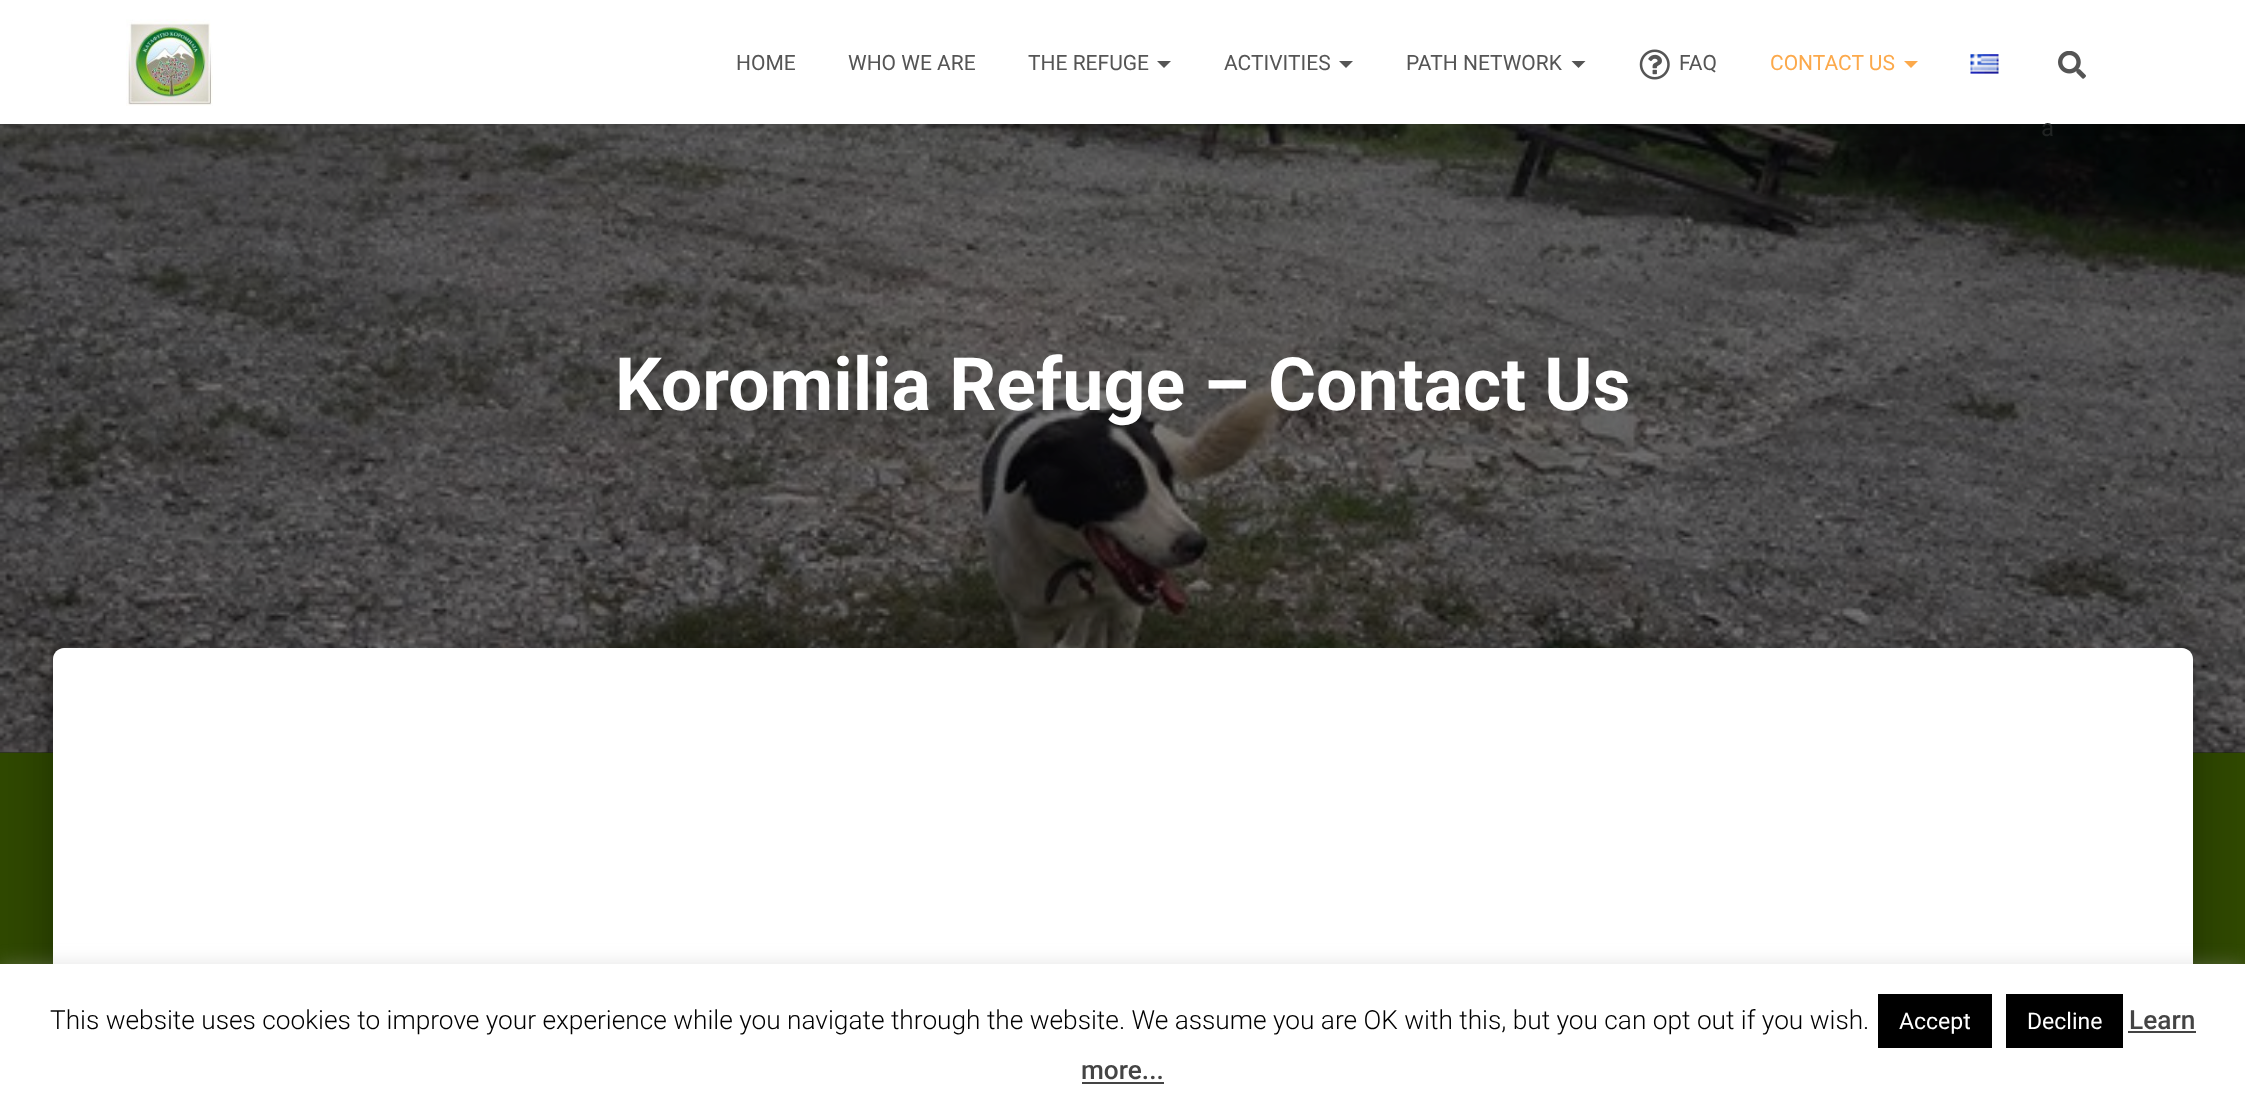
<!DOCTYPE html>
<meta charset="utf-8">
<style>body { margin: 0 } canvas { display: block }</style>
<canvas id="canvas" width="2245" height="1113"></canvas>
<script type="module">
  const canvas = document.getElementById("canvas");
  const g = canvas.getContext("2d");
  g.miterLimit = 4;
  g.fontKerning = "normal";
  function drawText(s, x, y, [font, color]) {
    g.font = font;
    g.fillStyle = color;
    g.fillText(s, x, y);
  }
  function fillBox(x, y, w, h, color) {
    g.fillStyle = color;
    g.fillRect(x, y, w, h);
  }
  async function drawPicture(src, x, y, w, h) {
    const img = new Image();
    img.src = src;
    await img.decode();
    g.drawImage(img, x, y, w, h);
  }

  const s1 = ["21px Roboto", "#555555"];
  const s2 = ["21px Roboto", "#FCA94B"];
  const s3 = ["24px Roboto", "#202322"];
  const s4 = ["bold 73.5px Roboto", "#FFFFFF"];
  const s5 = ["300 26.25px Roboto", "#000000"];
  const s6 = ["23px Roboto", "#FFFFFF"];
  const s7 = ["500 26.25px Roboto", "#444444"];

  fillBox(0, 0, 2245, 1113, "#304900");
  fillBox(0, 752, 2245, 1, "#182500");
  await drawPicture("pic5.png", 0, 124, 2245, 629);
  g.fillStyle = "rgba(0, 0, 0, 0.42)";
  g.filter = "blur(9px)";
  g.beginPath();
  g.rect(11, 12, 2224, 104);
  g.fill();
  g.filter = "none";
  fillBox(0, 0, 2245, 124, "#FFFFFF");
  await drawPicture("pic1.png", 126, 19, 87, 87);
  drawText("HOME", 736, 70, s1);
  drawText("WHO WE ARE", 848, 70, s1);
  drawText("THE REFUGE", 1028, 70, s1);
  g.beginPath();
  g.moveTo(1157, 61);
  g.lineTo(1171, 61);
  g.lineTo(1164, 68);
  g.closePath();
  g.fill();
  drawText("ACTIVITIES", 1224, 70, s1);
  g.beginPath();
  g.moveTo(1339, 61);
  g.lineTo(1353, 61);
  g.lineTo(1346, 68);
  g.closePath();
  g.fill();
  drawText("PATH NETWORK", 1406, 70, s1);
  g.beginPath();
  g.moveTo(1571.5, 61);
  g.lineTo(1585.5, 61);
  g.lineTo(1578.5, 68);
  g.closePath();
  g.fill();
  await drawPicture("pic2.png", 1639, 49, 31, 31);
  drawText("FAQ", 1679, 70, s1);
  drawText("CONTACT US", 1770, 70, s2);
  g.beginPath();
  g.moveTo(1904, 61);
  g.lineTo(1918, 61);
  g.lineTo(1911, 68);
  g.closePath();
  g.fill();
  await drawPicture("pic3.png", 1970, 54, 29, 20);
  await drawPicture("pic4.png", 2058, 51, 28, 28);
  drawText("a", 2041, 136, s3);
  drawText("Koromilia Refuge – Contact Us", 615, 410, s4);
  g.fillStyle = "rgba(0, 0, 0, 0.2)";
  g.filter = "blur(9px)";
  g.beginPath();
  g.roundRect(61, 670, 2123, 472, 2);
  g.fill();
  g.filter = "none";
  g.fillStyle = "rgba(0, 0, 0, 0.12)";
  g.filter = "blur(26px)";
  g.beginPath();
  g.roundRect(44, 649, 2158, 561, 19);
  g.fill();
  g.filter = "none";
  g.fillStyle = "rgba(0, 0, 0, 0.14)";
  g.filter = "blur(21px)";
  g.beginPath();
  g.roundRect(49, 672, 2147, 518, 14);
  g.fill();
  g.filter = "none";
  g.fillStyle = "#FFFFFF";
  g.beginPath();
  g.moveTo(64, 648);
  g.lineTo(2182, 648);
  g.bezierCurveTo(2188, 648, 2193, 653, 2193, 659);
  g.lineTo(2193, 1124);
  g.lineTo(53, 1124);
  g.lineTo(53, 659);
  g.bezierCurveTo(53, 653, 58, 648, 64, 648);
  g.closePath();
  g.fill();
  g.fillStyle = "rgba(172, 171, 171, 0.3)";
  g.filter = "blur(9px)";
  g.beginPath();
  g.rect(0, 963, 2245, 148);
  g.fill();
  g.filter = "none";
  fillBox(0, 964, 2245, 149, "#FFFFFF");
  drawText("This website uses cookies to improve your experience while you navigate through the website. We assume you are OK with this, but you can opt out if you wish.", 50, 1029, s5);
  fillBox(1878, 994, 114, 54, "#000000");
  drawText("Accept", 1899, 1029, s6);
  fillBox(2006, 994, 117, 54, "#000000");
  drawText("Decline", 2027, 1029, s6);
  drawText("Learn", 2129, 1029, s7);
  fillBox(2128, 1031, 68, 2, "#444444");
  drawText("more...", 1081, 1079, s7);
  fillBox(1082, 1082, 82, 2, "#444444");
</script>
